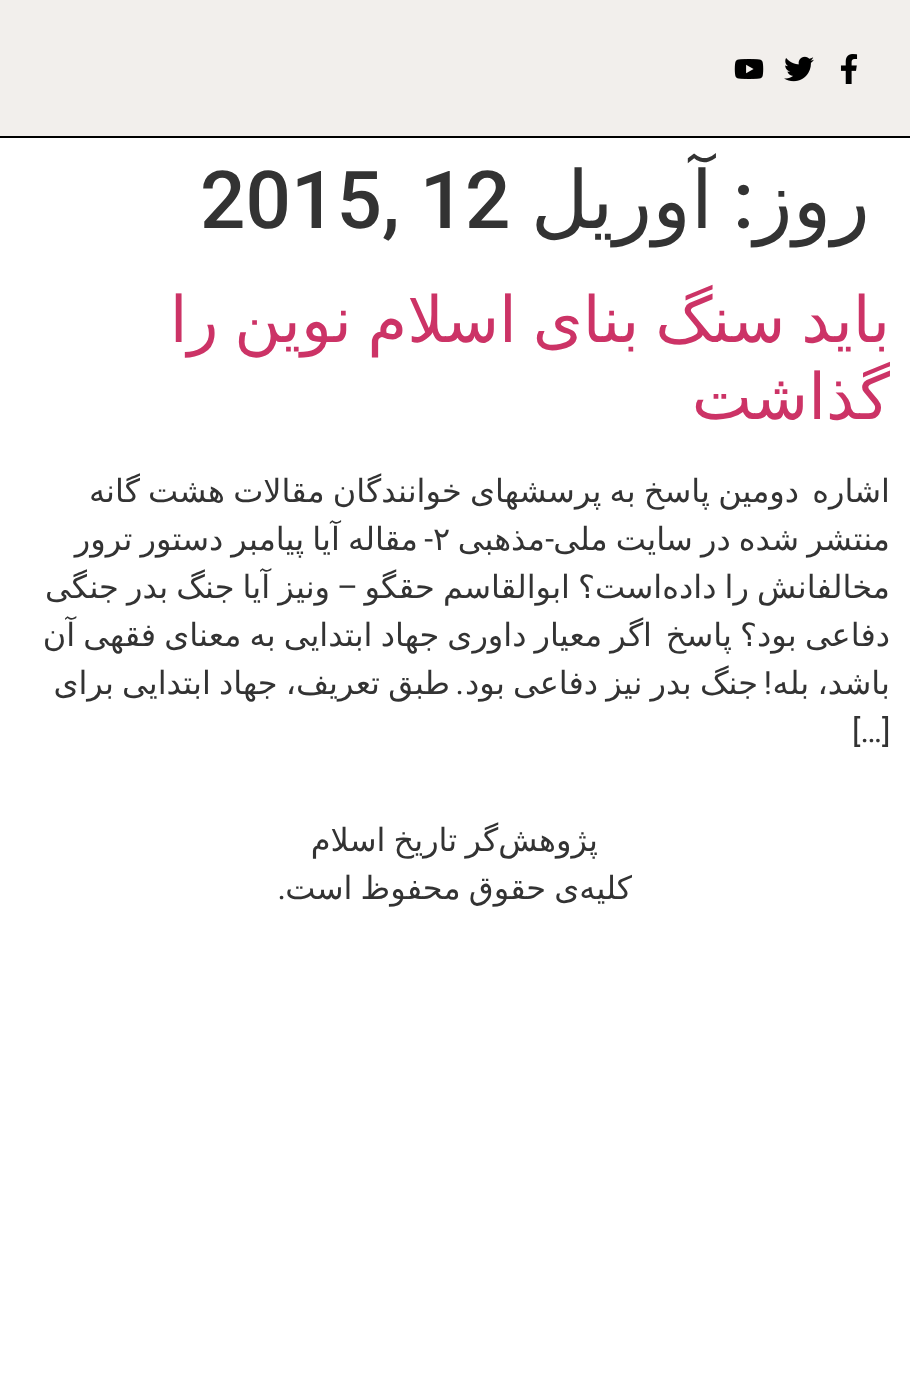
<!DOCTYPE html>
<meta charset="utf-8">
<style>body { margin: 0 } canvas { display: block }</style>
<canvas id="canvas" width="910" height="1381"></canvas>
<script type="module">
  const canvas = document.getElementById("canvas");
  const g = canvas.getContext("2d");
  g.miterLimit = 4;
  g.fontKerning = "normal";
  function drawText(s, x, y, [font, color]) {
    g.font = font;
    g.fillStyle = color;
    g.fillText(s, x, y);
  }
  function fillBox(x, y, w, h, color) {
    g.fillStyle = color;
    g.fillRect(x, y, w, h);
  }
  async function drawPicture(src, x, y, w, h) {
    const img = new Image();
    img.src = src;
    await img.decode();
    g.drawImage(img, x, y, w, h);
  }

  const s1 = ["80px DejaVu Sans", "#333333"];
  const s2 = ["500 80px Roboto", "#333333"];
  const s3 = ["64px DejaVu Sans", "#CC3366"];
  const s4 = ["32px DejaVu Sans", "#333333"];
  const s5 = ["32px Roboto", "#333333"];

  fillBox(0, 0, 910, 1381, "#FFFFFF");
  fillBox(0, 0, 910, 136, "#F2EFEC");
  fillBox(0, 136, 910, 2, "#000000");
  await drawPicture("pic1.png", 840, 54, 18, 30);
  await drawPicture("pic2.png", 784, 56, 30, 26);
  await drawPicture("pic3.png", 734, 59, 30, 20);
  g.direction = "rtl";
  drawText("روز", 870, 228, s1);
  drawText(":", 754, 228, s2);
  drawText("آوریل", 713, 228, s1);
  g.direction = "ltr";
  drawText("2015, 12", 200, 228, s2);
  g.wordSpacing = "-4.5px";
  g.direction = "rtl";
  drawText("باید سنگ بنای اسلام نوین را", 890, 342, s3);
  g.wordSpacing = "0px";
  drawText("گذاشت", 890, 419, s3);
  drawText("اشاره", 890, 502, s4);
  g.wordSpacing = "-2px";
  drawText("دومین پاسخ به پرسشهای خوانندگان مقالات هشت گانه", 799, 502, s4);
  drawText("منتشر شده در سایت ملی", 890, 550, s4);
  g.wordSpacing = "0px";
  drawText("-", 554, 550, s5);
  drawText("مذهبی", 545, 550, s4);
  g.direction = "ltr";
  drawText("۲", 433, 550, s4);
  g.direction = "rtl";
  drawText("-", 433, 550, s5);
  g.wordSpacing = "-2px";
  drawText("مقاله آیا پیامبر دستور ترور", 418, 550, s4);
  drawText("مخالفانش را داده‌است؟ ابوالقاسم حقگو", 890, 598, s4);
  g.wordSpacing = "0px";
  drawText("–", 358, 598, s5);
  g.wordSpacing = "-2px";
  drawText("ونیز آیا جنگ بدر جنگی", 330, 598, s4);
  drawText("دفاعی بود؟ پاسخ", 890, 646, s4);
  drawText("اگر معیار داوری جهاد ابتدایی به معنای فقهی آن", 652, 646, s4);
  drawText("باشد، بله", 890, 694, s4);
  g.wordSpacing = "0px";
  drawText("!", 772, 694, s5);
  g.wordSpacing = "-2px";
  drawText("جنگ بدر نیز دفاعی بود", 758, 694, s4);
  g.wordSpacing = "0px";
  drawText(".", 464, 694, s5);
  g.wordSpacing = "-2px";
  drawText("طبق تعریف، جهاد ابتدایی برای", 450, 694, s4);
  g.wordSpacing = "0px";
  g.direction = "ltr";
  drawText("[…]", 852, 742, s5);
  g.wordSpacing = "-2px";
  g.direction = "rtl";
  drawText("پژوهش‌گر تاریخ اسلام", 598, 851, s4);
  drawText("کلیه‌ی حقوق محفوظ است", 632, 899, s4);
  g.wordSpacing = "0px";
  drawText(".", 286, 899, s5);
</script>
